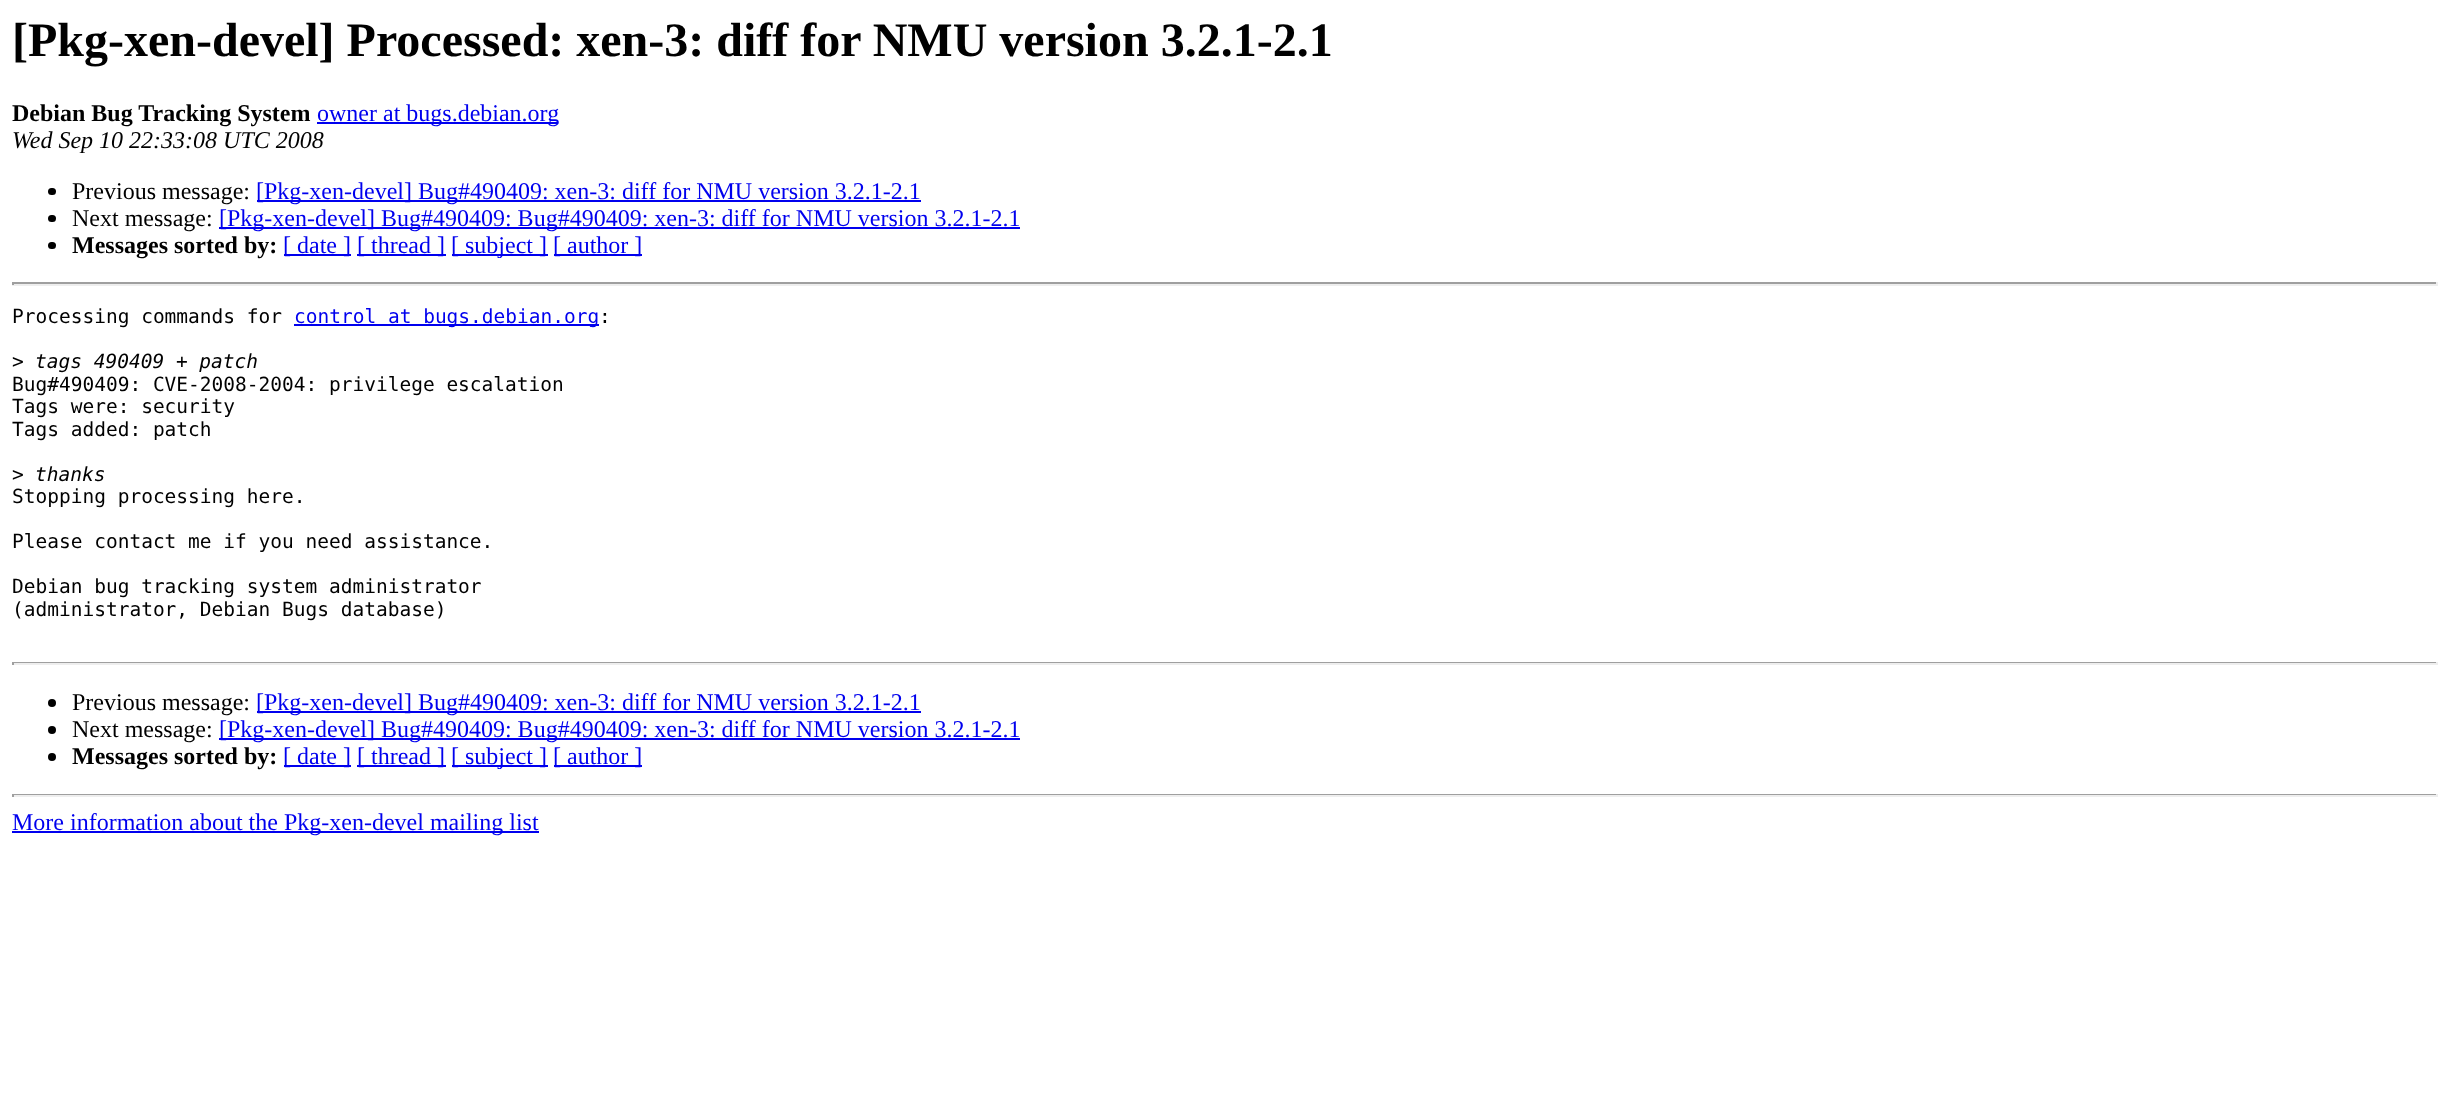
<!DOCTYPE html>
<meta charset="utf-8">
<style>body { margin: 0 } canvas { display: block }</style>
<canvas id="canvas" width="2449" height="1116"></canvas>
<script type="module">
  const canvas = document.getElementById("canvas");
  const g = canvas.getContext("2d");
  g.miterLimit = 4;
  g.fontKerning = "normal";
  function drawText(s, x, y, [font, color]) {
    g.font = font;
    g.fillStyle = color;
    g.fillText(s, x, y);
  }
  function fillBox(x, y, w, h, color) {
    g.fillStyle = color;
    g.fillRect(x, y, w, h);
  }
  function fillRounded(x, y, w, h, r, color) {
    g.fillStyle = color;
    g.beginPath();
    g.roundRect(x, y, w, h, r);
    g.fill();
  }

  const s1 = ["bold 48px Liberation Serif", "#000000"];
  const s2 = ["bold 24px Liberation Serif", "#000000"];
  const s3 = ["24px Liberation Serif", "#0000EE"];
  const s4 = ["italic 24px Liberation Serif", "#000000"];
  const s5 = ["24px Liberation Serif", "#000000"];
  const s6 = ["19.5px DejaVu Sans Mono", "#000000"];
  const s7 = ["19.5px DejaVu Sans Mono", "#0000EE"];
  const s8 = ["italic 19.5px DejaVu Sans Mono", "#000000"];

  fillBox(0, 0, 2449, 1116, "#FFFFFF");
  drawText("[Pkg-xen-devel] Processed: xen-3: diff for NMU version 3.2.1-2.1", 12, 56, s1);
  drawText("Debian Bug Tracking System", 12, 121, s2);
  fillBox(317, 122, 241, 2, "#0000EE");
  drawText("owner at bugs.debian.org", 317, 121, s3);
  drawText("Wed Sep 10 22:33:08 UTC 2008", 12, 148, s4);
  fillRounded(48, 188, 8, 7, 3.5, "#000000");
  drawText("Previous message:", 72, 199, s5);
  fillBox(257, 200, 664, 2, "#0000EE");
  drawText("[Pkg-xen-devel] Bug#490409: xen-3: diff for NMU version 3.2.1-2.1", 256, 199, s3);
  fillRounded(48, 215, 8, 7, 3.5, "#000000");
  drawText("Next message:", 72, 226, s5);
  fillBox(219, 227, 801, 2, "#0000EE");
  drawText("[Pkg-xen-devel] Bug#490409: Bug#490409: xen-3: diff for NMU version 3.2.1-2.1", 219, 226, s3);
  fillRounded(48, 242, 8, 7, 3.5, "#000000");
  drawText("Messages sorted by:", 72, 253, s2);
  fillBox(284, 254, 67, 2, "#0000EE");
  drawText("[ date ]", 283, 253, s3);
  fillBox(357, 254, 89, 2, "#0000EE");
  drawText("[ thread ]", 357, 253, s3);
  fillBox(452, 254, 96, 2, "#0000EE");
  drawText("[ subject ]", 451, 253, s3);
  fillBox(554, 254, 88, 2, "#0000EE");
  drawText("[ author ]", 553, 253, s3);
  fillBox(12, 282, 2426, 2, "#9F9F9F");
  fillBox(2436, 282, 2, 3, "#EEEEEE");
  fillBox(12, 284, 2426, 2, "#EEEEEE");
  fillBox(12, 282, 2, 3, "#9F9F9F");
  drawText("Processing commands for", 12, 323, s6);
  fillBox(294, 324, 305, 2, "#0000EE");
  drawText("control at bugs.debian.org", 294, 323, s7);
  drawText(":", 599, 323, s6);
  drawText(">", 12, 368, s6);
  drawText("tags 490409 + patch", 35, 368, s8);
  drawText("Bug#490409: CVE-2008-2004: privilege escalation", 12, 391, s6);
  drawText("Tags were: security", 12, 413, s6);
  drawText("Tags added: patch", 12, 436, s6);
  drawText(">", 12, 481, s6);
  drawText("thanks", 35, 481, s8);
  drawText("Stopping processing here.", 12, 503, s6);
  drawText("Please contact me if you need assistance.", 12, 548, s6);
  drawText("Debian bug tracking system administrator", 12, 593, s6);
  drawText("(administrator, Debian Bugs database)", 12, 616, s6);
  fillBox(12, 662, 2426, 1, "#9F9F9F");
  fillBox(2436, 662, 2, 3, "#EEEEEE");
  fillBox(12, 663, 2426, 2, "#EEEEEE");
  fillBox(12, 662, 2, 3, "#9F9F9F");
  g.fillStyle = "#000000";
  g.beginPath();
  g.arc(52, 703, 4, 0, Math.PI * 2);
  g.fill();
  drawText("Previous message:", 72, 710, s5);
  fillBox(257, 711, 664, 2, "#0000EE");
  drawText("[Pkg-xen-devel] Bug#490409: xen-3: diff for NMU version 3.2.1-2.1", 256, 710, s3);
  g.fillStyle = "#000000";
  g.beginPath();
  g.arc(52, 730, 4, 0, Math.PI * 2);
  g.fill();
  drawText("Next message:", 72, 737, s5);
  fillBox(219, 738, 801, 2, "#0000EE");
  drawText("[Pkg-xen-devel] Bug#490409: Bug#490409: xen-3: diff for NMU version 3.2.1-2.1", 219, 737, s3);
  g.fillStyle = "#000000";
  g.beginPath();
  g.arc(52, 757, 4, 0, Math.PI * 2);
  g.fill();
  drawText("Messages sorted by:", 72, 764, s2);
  fillBox(284, 765, 67, 2, "#0000EE");
  drawText("[ date ]", 283, 764, s3);
  fillBox(357, 765, 89, 2, "#0000EE");
  drawText("[ thread ]", 357, 764, s3);
  fillBox(452, 765, 96, 2, "#0000EE");
  drawText("[ subject ]", 451, 764, s3);
  fillBox(554, 765, 88, 2, "#0000EE");
  drawText("[ author ]", 553, 764, s3);
  fillBox(12, 794, 2426, 1, "#9F9F9F");
  fillBox(2436, 794, 2, 3, "#EEEEEE");
  fillBox(12, 795, 2426, 2, "#EEEEEE");
  fillBox(12, 794, 2, 3, "#9F9F9F");
  fillBox(12, 831, 527, 2, "#0000EE");
  drawText("More information about the Pkg-xen-devel mailing list", 12, 830, s3);
</script>
